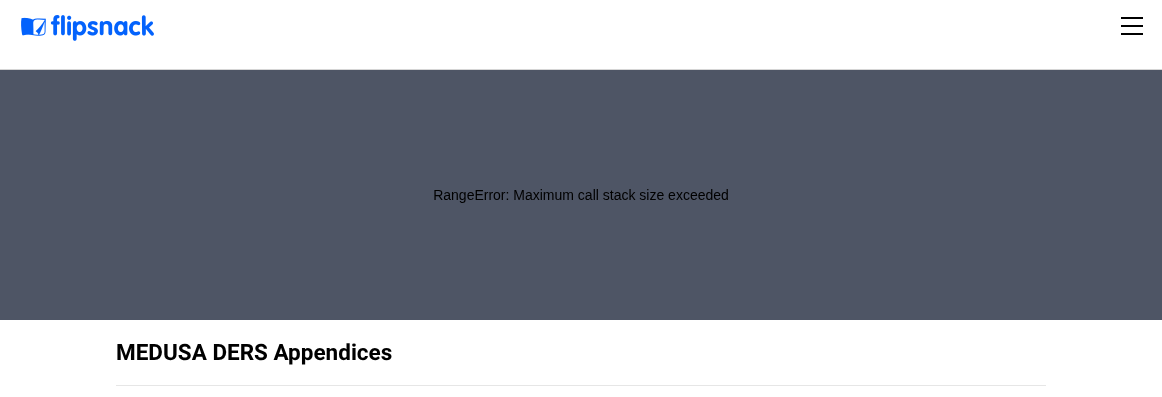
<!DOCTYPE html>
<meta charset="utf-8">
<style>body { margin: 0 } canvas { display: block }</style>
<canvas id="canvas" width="1162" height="397"></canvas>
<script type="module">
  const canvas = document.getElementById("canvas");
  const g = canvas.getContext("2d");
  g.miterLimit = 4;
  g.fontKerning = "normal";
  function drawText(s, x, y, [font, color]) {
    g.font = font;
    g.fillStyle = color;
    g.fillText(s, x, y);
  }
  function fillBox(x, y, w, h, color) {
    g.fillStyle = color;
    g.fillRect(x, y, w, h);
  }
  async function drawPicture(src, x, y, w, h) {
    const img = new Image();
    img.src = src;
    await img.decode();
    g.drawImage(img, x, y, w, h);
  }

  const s1 = ["bold 22.5px Roboto", "#000000"];

  fillBox(0, 0, 1162, 397, "#FFFFFF");
  fillBox(0, 69, 1162, 1, "#D5D5D5");
  await drawPicture("pic1.png", 21, 15, 133, 26);
  fillBox(1121, 17, 22, 2, "#000000");
  fillBox(1121, 25, 22, 2, "#000000");
  fillBox(1121, 33, 22, 2, "#000000");
  fillBox(0, 70, 1162, 250, "#4E5565");
  await drawPicture("pic2.png", 434, 189, 294, 14);
  drawText("MEDUSA DERS Appendices", 116, 360, s1);
  fillBox(116, 385, 930, 1, "#E6E6E6");
</script>
